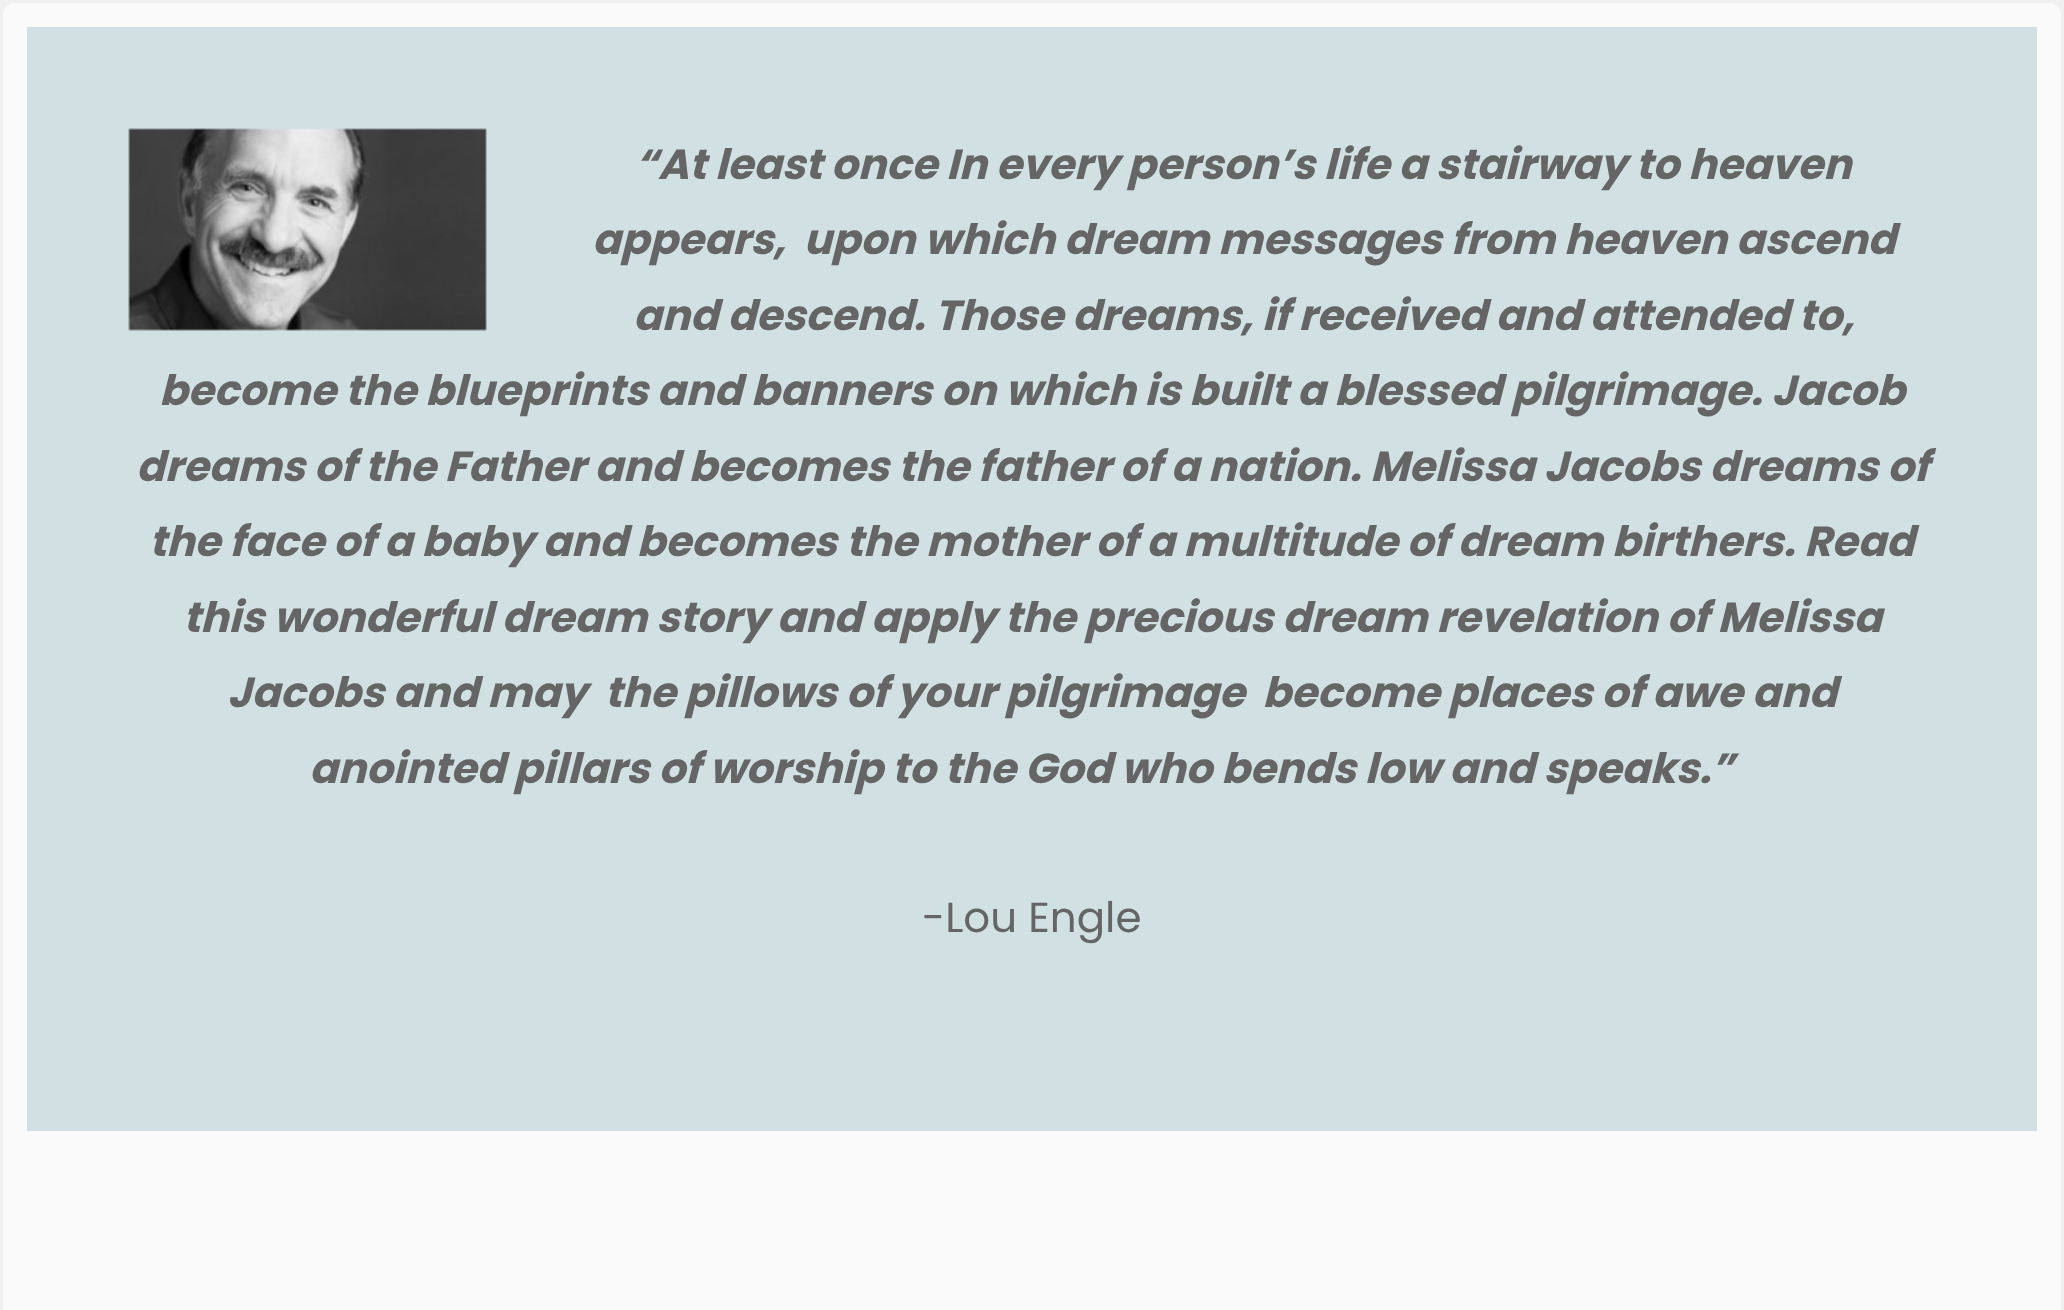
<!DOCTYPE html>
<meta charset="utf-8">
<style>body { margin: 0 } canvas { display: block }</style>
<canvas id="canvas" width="2064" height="1310"></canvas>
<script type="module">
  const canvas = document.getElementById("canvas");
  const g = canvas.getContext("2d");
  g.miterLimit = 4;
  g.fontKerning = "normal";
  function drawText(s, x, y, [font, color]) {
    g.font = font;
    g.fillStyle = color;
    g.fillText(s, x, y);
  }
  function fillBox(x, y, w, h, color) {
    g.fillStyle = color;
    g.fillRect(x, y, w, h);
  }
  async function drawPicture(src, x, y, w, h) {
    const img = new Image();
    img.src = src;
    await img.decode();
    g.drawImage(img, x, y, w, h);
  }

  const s1 = ["italic bold 42px Poppins", "#656565"];
  const s2 = ["42px Poppins", "#656565"];

  fillBox(0, 0, 2064, 1310, "#EFEFEF");
  g.fillStyle = "#FAFAFA";
  g.beginPath();
  g.roundRect(1.5, 1.5, 2061, 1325, 13.5);
  g.fill();
  g.strokeStyle = "#F0F0F0";
  g.lineWidth = 3;
  g.stroke();
  fillBox(27, 27, 2010, 1104, "#D0E0E3");
  await drawPicture("pic1.png", 128, 128, 359, 203);
  drawText("“At least once In every person’s life a stairway to heaven", 635, 179, s1);
  drawText("appears,  upon which dream messages from heaven ascend", 592, 254, s1);
  drawText("and descend. Those dreams, if received and attended to,", 633, 330, s1);
  drawText("become the blueprints and banners on which is built a blessed pilgrimage. Jacob", 159, 405, s1);
  drawText("dreams of the Father and becomes the father of a nation. Melissa Jacobs dreams of", 136, 481, s1);
  drawText("the face of a baby and becomes the mother of a multitude of dream birthers. Read", 149, 556, s1);
  drawText("this wonderful dream story and apply the precious dream revelation of Melissa", 183, 632, s1);
  drawText("Jacobs and may  the pillows of your pilgrimage  become places of awe and", 227, 707, s1);
  drawText("anointed pillars of worship to the God who bends low and speaks.”", 309, 783, s1);
  drawText("-Lou Engle", 922, 932, s2);
</script>
